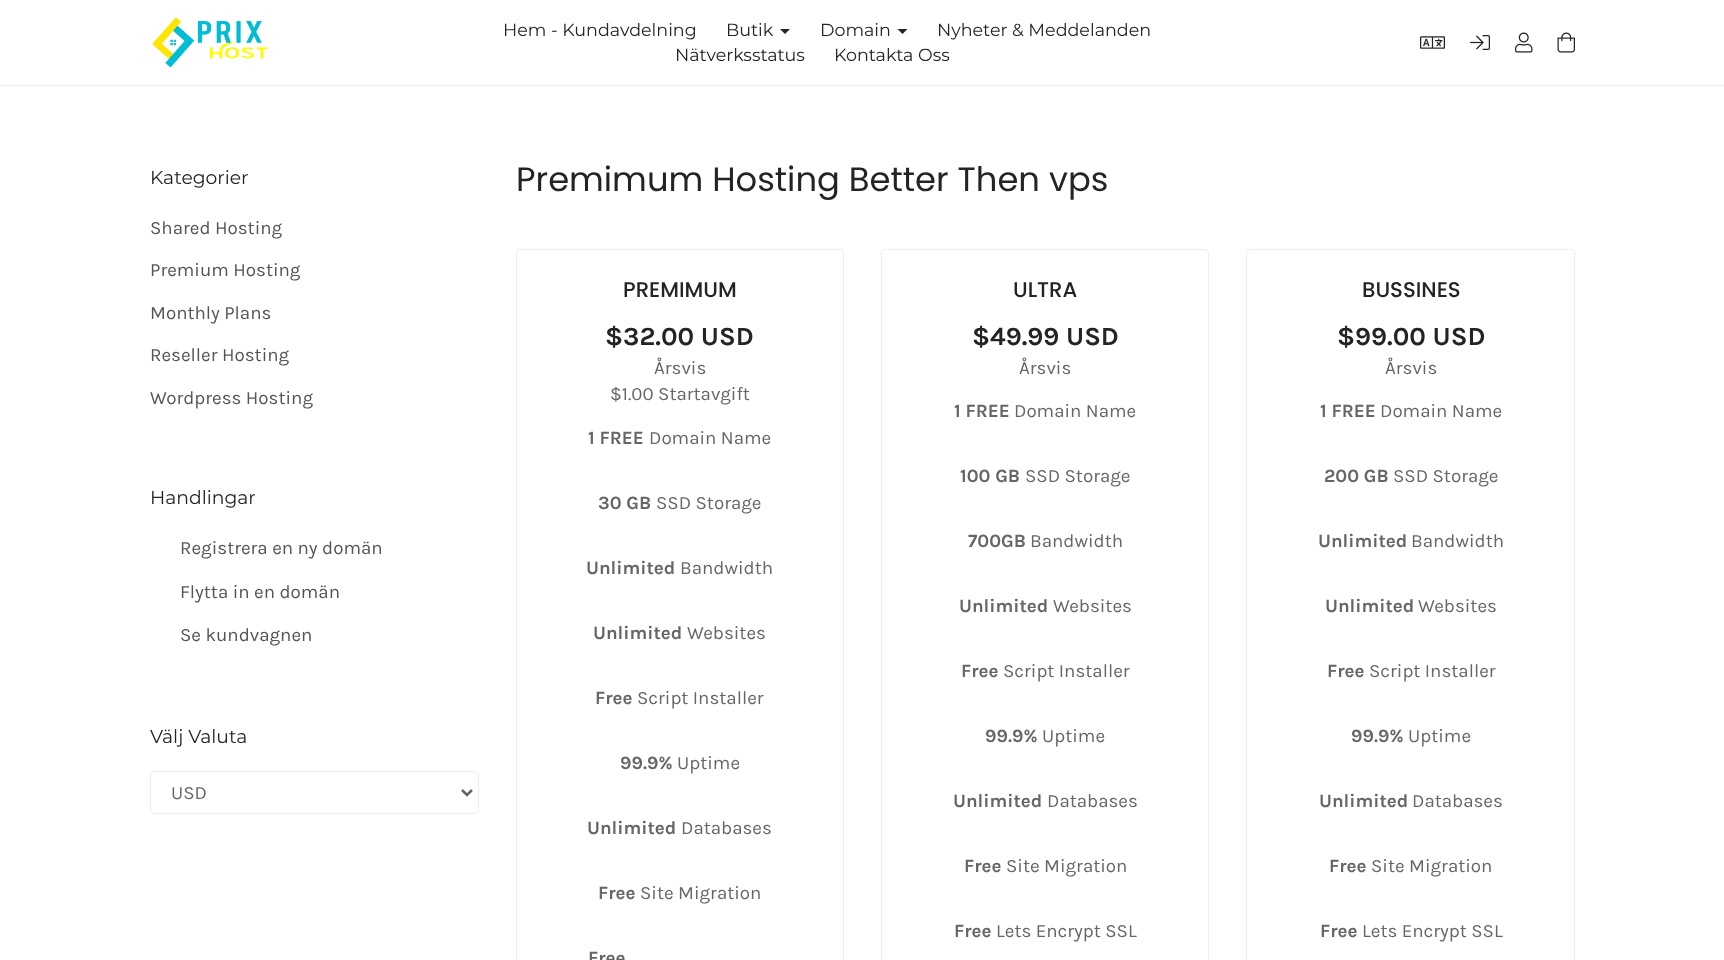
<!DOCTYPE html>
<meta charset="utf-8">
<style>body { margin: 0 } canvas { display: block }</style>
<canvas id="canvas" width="1724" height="960"></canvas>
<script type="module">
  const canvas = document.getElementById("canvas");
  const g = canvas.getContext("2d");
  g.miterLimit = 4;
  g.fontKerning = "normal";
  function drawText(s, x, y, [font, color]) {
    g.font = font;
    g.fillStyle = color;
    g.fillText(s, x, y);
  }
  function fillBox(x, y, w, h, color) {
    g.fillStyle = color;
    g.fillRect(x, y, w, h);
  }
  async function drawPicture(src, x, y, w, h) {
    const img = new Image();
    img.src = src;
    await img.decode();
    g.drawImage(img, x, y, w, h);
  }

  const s1 = ["100 17.5px Montserrat", "#242424"];
  const s2 = ["100 18.75px Montserrat", "#242424"];
  const s3 = ["18.75px Karla", "#555555"];
  const s4 = ["18.75px Karla", "#666666"];
  const s5 = ["33.75px Poppins", "#242424"];
  const s6 = ["500 21.25px Poppins", "#242424"];
  const s7 = ["bold 26.25px Karla", "#242424"];
  const s8 = ["bold 18.75px Karla", "#666666"];

  fillBox(0, 0, 1724, 960, "#FFFFFF");
  fillBox(0, 85, 1724, 1, "#EEEEEE");
  await drawPicture("pic1.png", 152, 17, 116, 51);
  drawText("Hem - Kundavdelning", 503, 36, s1);
  drawText("Butik", 726, 36, s1);
  g.beginPath();
  g.moveTo(780, 29);
  g.lineTo(790, 29);
  g.lineTo(785, 34);
  g.closePath();
  g.fill();
  drawText("Domain", 820, 36, s1);
  g.beginPath();
  g.moveTo(897.5, 29);
  g.lineTo(907.5, 29);
  g.lineTo(902.5, 34);
  g.closePath();
  g.fill();
  drawText("Nyheter & Meddelanden", 937, 36, s1);
  drawText("Nätverksstatus", 675, 61, s1);
  drawText("Kontakta Oss", 834, 61, s1);
  await drawPicture("pic2.png", 1420, 36, 25, 13);
  await drawPicture("pic3.png", 1470, 35, 20, 15);
  await drawPicture("pic4.png", 1515, 32, 18, 21);
  await drawPicture("pic5.png", 1557, 32, 18, 21);
  drawText("Kategorier", 150, 184, s2);
  drawText("Shared Hosting", 150, 234, s3);
  drawText("Premium Hosting", 150, 276, s3);
  drawText("Monthly Plans", 150, 319, s3);
  drawText("Reseller Hosting", 150, 361, s3);
  drawText("Wordpress Hosting", 150, 404, s3);
  drawText("Handlingar", 150, 504, s2);
  drawText("Registrera en ny domän", 180, 554, s3);
  drawText("Flytta in en domän", 180, 598, s3);
  drawText("Se kundvagnen", 180, 641, s3);
  drawText("Välj Valuta", 150, 743, s2);
  g.beginPath();
  g.roundRect(150.5, 771.5, 328, 42, 3.5);
  g.strokeStyle = "#EEEEEE";
  g.stroke();
  g.beginPath();
  g.moveTo(462, 790);
  g.lineTo(467, 795);
  g.lineTo(472, 790);
  g.strokeStyle = "#666666";
  g.lineWidth = 2.5;
  g.stroke();
  drawText("USD", 171, 799, s4);
  drawText("Premimum Hosting Better Then vps", 516, 191, s5);
  g.beginPath();
  g.roundRect(516.5, 249.5, 327, 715, 3.5);
  g.strokeStyle = "#EEEEEE";
  g.lineWidth = 1;
  g.stroke();
  drawText("PREMIMUM", 623, 297, s6);
  drawText("$32.00 USD", 605, 345, s7);
  drawText("Årsvis", 654, 374, s4);
  drawText("$1.00 Startavgift", 610, 400, s4);
  drawText("1 FREE", 588, 444, s8);
  drawText("Domain Name", 649, 444, s4);
  drawText("30 GB", 598, 509, s8);
  drawText("SSD Storage", 656, 509, s4);
  drawText("Unlimited", 586, 574, s8);
  drawText("Bandwidth", 680, 574, s4);
  drawText("Unlimited", 593, 639, s8);
  drawText("Websites", 687, 639, s4);
  drawText("Free", 595, 704, s8);
  drawText("Script Installer", 637, 704, s4);
  drawText("99.9%", 620, 769, s8);
  drawText("Uptime", 677, 769, s4);
  drawText("Unlimited", 587, 834, s8);
  drawText("Databases", 681, 834, s4);
  drawText("Free", 598, 899, s8);
  drawText("Site Migration", 640, 899, s4);
  drawText("Free", 588, 964, s8);
  g.beginPath();
  g.roundRect(881.5, 249.5, 327, 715, 3.5);
  g.stroke();
  drawText("ULTRA", 1013, 297, s6);
  drawText("$49.99 USD", 972, 345, s7);
  drawText("Årsvis", 1019, 374, s4);
  drawText("1 FREE", 954, 417, s8);
  drawText("Domain Name", 1014, 417, s4);
  drawText("100 GB", 960, 482, s8);
  drawText("SSD Storage", 1025, 482, s4);
  drawText("700GB", 968, 547, s8);
  drawText("Bandwidth", 1030, 547, s4);
  drawText("Unlimited", 959, 612, s8);
  drawText("Websites", 1053, 612, s4);
  drawText("Free", 961, 677, s8);
  drawText("Script Installer", 1003, 677, s4);
  drawText("99.9%", 985, 742, s8);
  drawText("Uptime", 1042, 742, s4);
  drawText("Unlimited", 953, 807, s8);
  drawText("Databases", 1047, 807, s4);
  drawText("Free", 964, 872, s8);
  drawText("Site Migration", 1006, 872, s4);
  drawText("Free", 954, 937, s8);
  drawText("Lets Encrypt SSL", 996, 937, s4);
  g.beginPath();
  g.roundRect(1246.5, 249.5, 328, 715, 3.5);
  g.stroke();
  drawText("BUSSINES", 1362, 297, s6);
  drawText("$99.00 USD", 1337, 345, s7);
  drawText("Årsvis", 1385, 374, s4);
  drawText("1 FREE", 1320, 417, s8);
  drawText("Domain Name", 1380, 417, s4);
  drawText("200 GB", 1324, 482, s8);
  drawText("SSD Storage", 1393, 482, s4);
  drawText("Unlimited", 1318, 547, s8);
  drawText("Bandwidth", 1411, 547, s4);
  drawText("Unlimited", 1325, 612, s8);
  drawText("Websites", 1418, 612, s4);
  drawText("Free", 1327, 677, s8);
  drawText("Script Installer", 1369, 677, s4);
  drawText("99.9%", 1351, 742, s8);
  drawText("Uptime", 1408, 742, s4);
  drawText("Unlimited", 1319, 807, s8);
  drawText("Databases", 1412, 807, s4);
  drawText("Free", 1329, 872, s8);
  drawText("Site Migration", 1371, 872, s4);
  drawText("Free", 1320, 937, s8);
  drawText("Lets Encrypt SSL", 1362, 937, s4);
</script>
